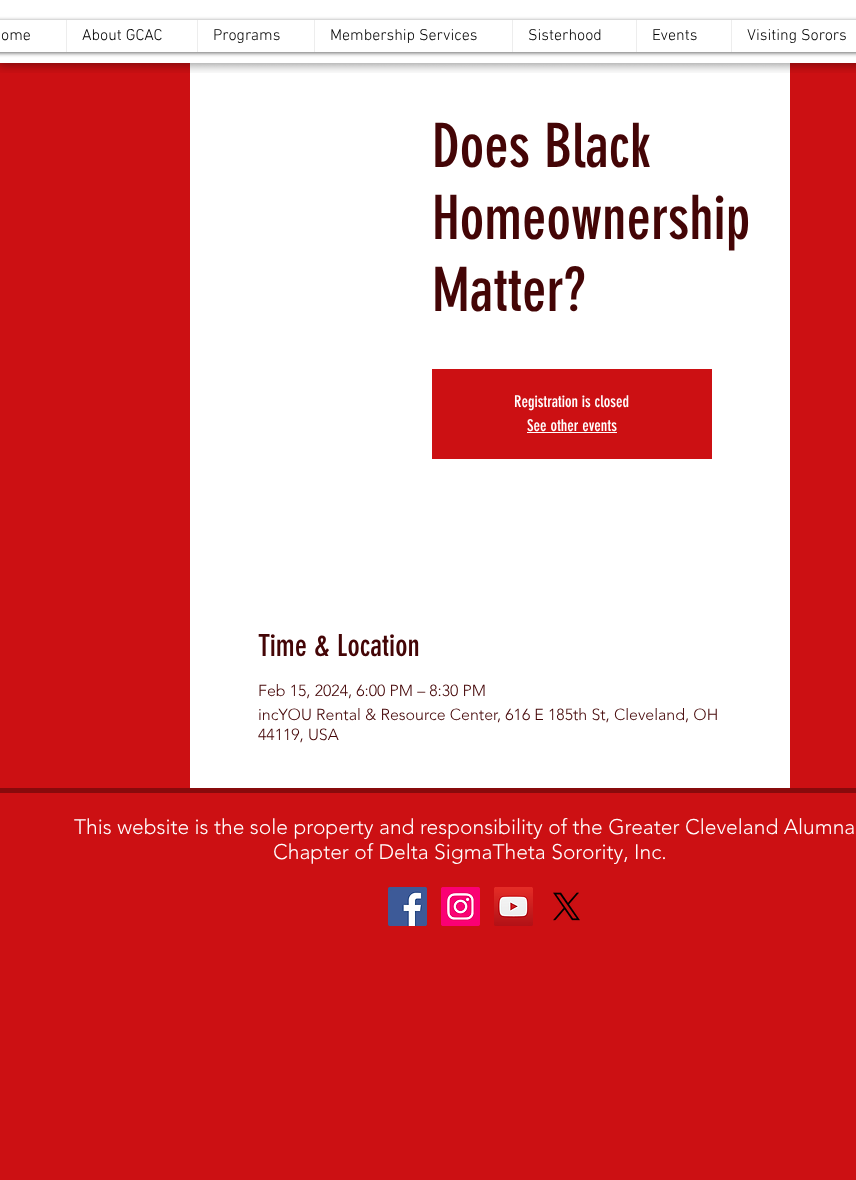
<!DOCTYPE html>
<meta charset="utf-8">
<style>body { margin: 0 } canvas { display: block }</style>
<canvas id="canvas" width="856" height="1180"></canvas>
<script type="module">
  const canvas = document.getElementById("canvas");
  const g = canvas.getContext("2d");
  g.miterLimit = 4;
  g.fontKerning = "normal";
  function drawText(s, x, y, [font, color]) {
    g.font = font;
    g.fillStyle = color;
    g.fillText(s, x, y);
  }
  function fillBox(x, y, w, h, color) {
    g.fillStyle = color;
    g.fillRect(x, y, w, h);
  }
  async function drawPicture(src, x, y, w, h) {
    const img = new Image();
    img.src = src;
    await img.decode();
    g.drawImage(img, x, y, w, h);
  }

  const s1 = ["300 16px 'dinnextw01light'", "#000000"];
  const s2 = ["60px 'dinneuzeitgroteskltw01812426'", "#440506"];
  const s3 = ["16px 'dinneuzeitgroteskltw01812426'", "#FFFFFF"];
  const s4 = ["30px 'dinneuzeitgroteskltw01812426'", "#440506"];
  const s5 = ["300 16px 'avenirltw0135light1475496'", "#440506"];
  const s6 = ["300 21px 'avenirltw0135light1475496'", "#FFFFFF"];

  fillBox(0, 0, 856, 1180, "#CC1013");
  fillBox(0, 0, 856, 63, "#FFFFFF");
  await drawPicture("pic1.png", 0, 63, 35, 10);
  fillBox(190, 63, 600, 725, "#FFFFFF");
  await drawPicture("pic2.png", 35, 63, 821, 10);
  g.save();
  g.beginPath();
  g.moveTo(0, 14);
  g.lineTo(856, 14);
  g.lineTo(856, 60);
  g.lineTo(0, 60);
  g.closePath();
  g.moveTo(-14, 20);
  g.lineTo(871, 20);
  g.bezierCurveTo(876.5, 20, 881, 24.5, 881, 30);
  g.lineTo(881, 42);
  g.bezierCurveTo(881, 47.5, 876.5, 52, 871, 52);
  g.lineTo(-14, 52);
  g.bezierCurveTo(-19.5, 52, -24, 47.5, -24, 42);
  g.lineTo(-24, 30);
  g.bezierCurveTo(-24, 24.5, -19.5, 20, -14, 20);
  g.closePath();
  g.clip("evenodd");
  g.fillStyle = "rgba(0, 0, 0, 0.6)";
  g.filter = "blur(2px)";
  g.beginPath();
  g.roundRect(-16, 21, 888, 32, 10);
  g.fill();
  g.filter = "none";
  g.restore();
  drawText("ome", 1, 40, s1);
  fillBox(66, 20, 1, 32, "#EDEDED");
  drawText("About GCAC", 82, 40, s1);
  fillBox(197, 20, 1, 32, "#EDEDED");
  drawText("Programs", 213, 40, s1);
  fillBox(314, 20, 1, 32, "#EDEDED");
  drawText("Membership Services", 330, 40, s1);
  fillBox(512, 20, 1, 32, "#EDEDED");
  drawText("Sisterhood", 528, 40, s1);
  fillBox(636, 20, 1, 32, "#EDEDED");
  drawText("Events", 652, 40, s1);
  fillBox(731, 20, 1, 32, "#EDEDED");
  drawText("Visiting Sorors", 747, 40, s1);
  drawText("Does Black", 432, 167, s2);
  drawText("Homeownership", 432, 239, s2);
  drawText("Matter?", 432, 311, s2);
  fillBox(432, 369, 280, 90, "#CC1013");
  drawText("Registration is closed", 514, 407, s3);
  drawText("See other events", 527, 431, s3);
  fillBox(527, 432, 90, 1, "#FFFFFF");
  drawText("Time & Location", 258, 656, s4);
  drawText("Feb 15, 2024, 6:00 PM – 8:30 PM", 258, 696, s5);
  drawText("incYOU Rental & Resource Center, 616 E 185th St, Cleveland, OH", 258, 720, s5);
  drawText("44119, USA", 258, 740, s5);
  fillBox(0, 788, 856, 5, "#880A0C");
  drawText("This website is the sole property and responsibility of the Greater Cleveland Alumna", 74, 834, s6);
  drawText("Chapter of Delta SigmaTheta Sorority, Inc.", 273, 859, s6);
  await drawPicture("pic3.png", 388, 887, 39, 39);
  await drawPicture("pic4.png", 441, 887, 39, 39);
  await drawPicture("pic5.png", 494, 887, 39, 39);
  await drawPicture("pic6.png", 553, 892, 27, 29);
</script>
